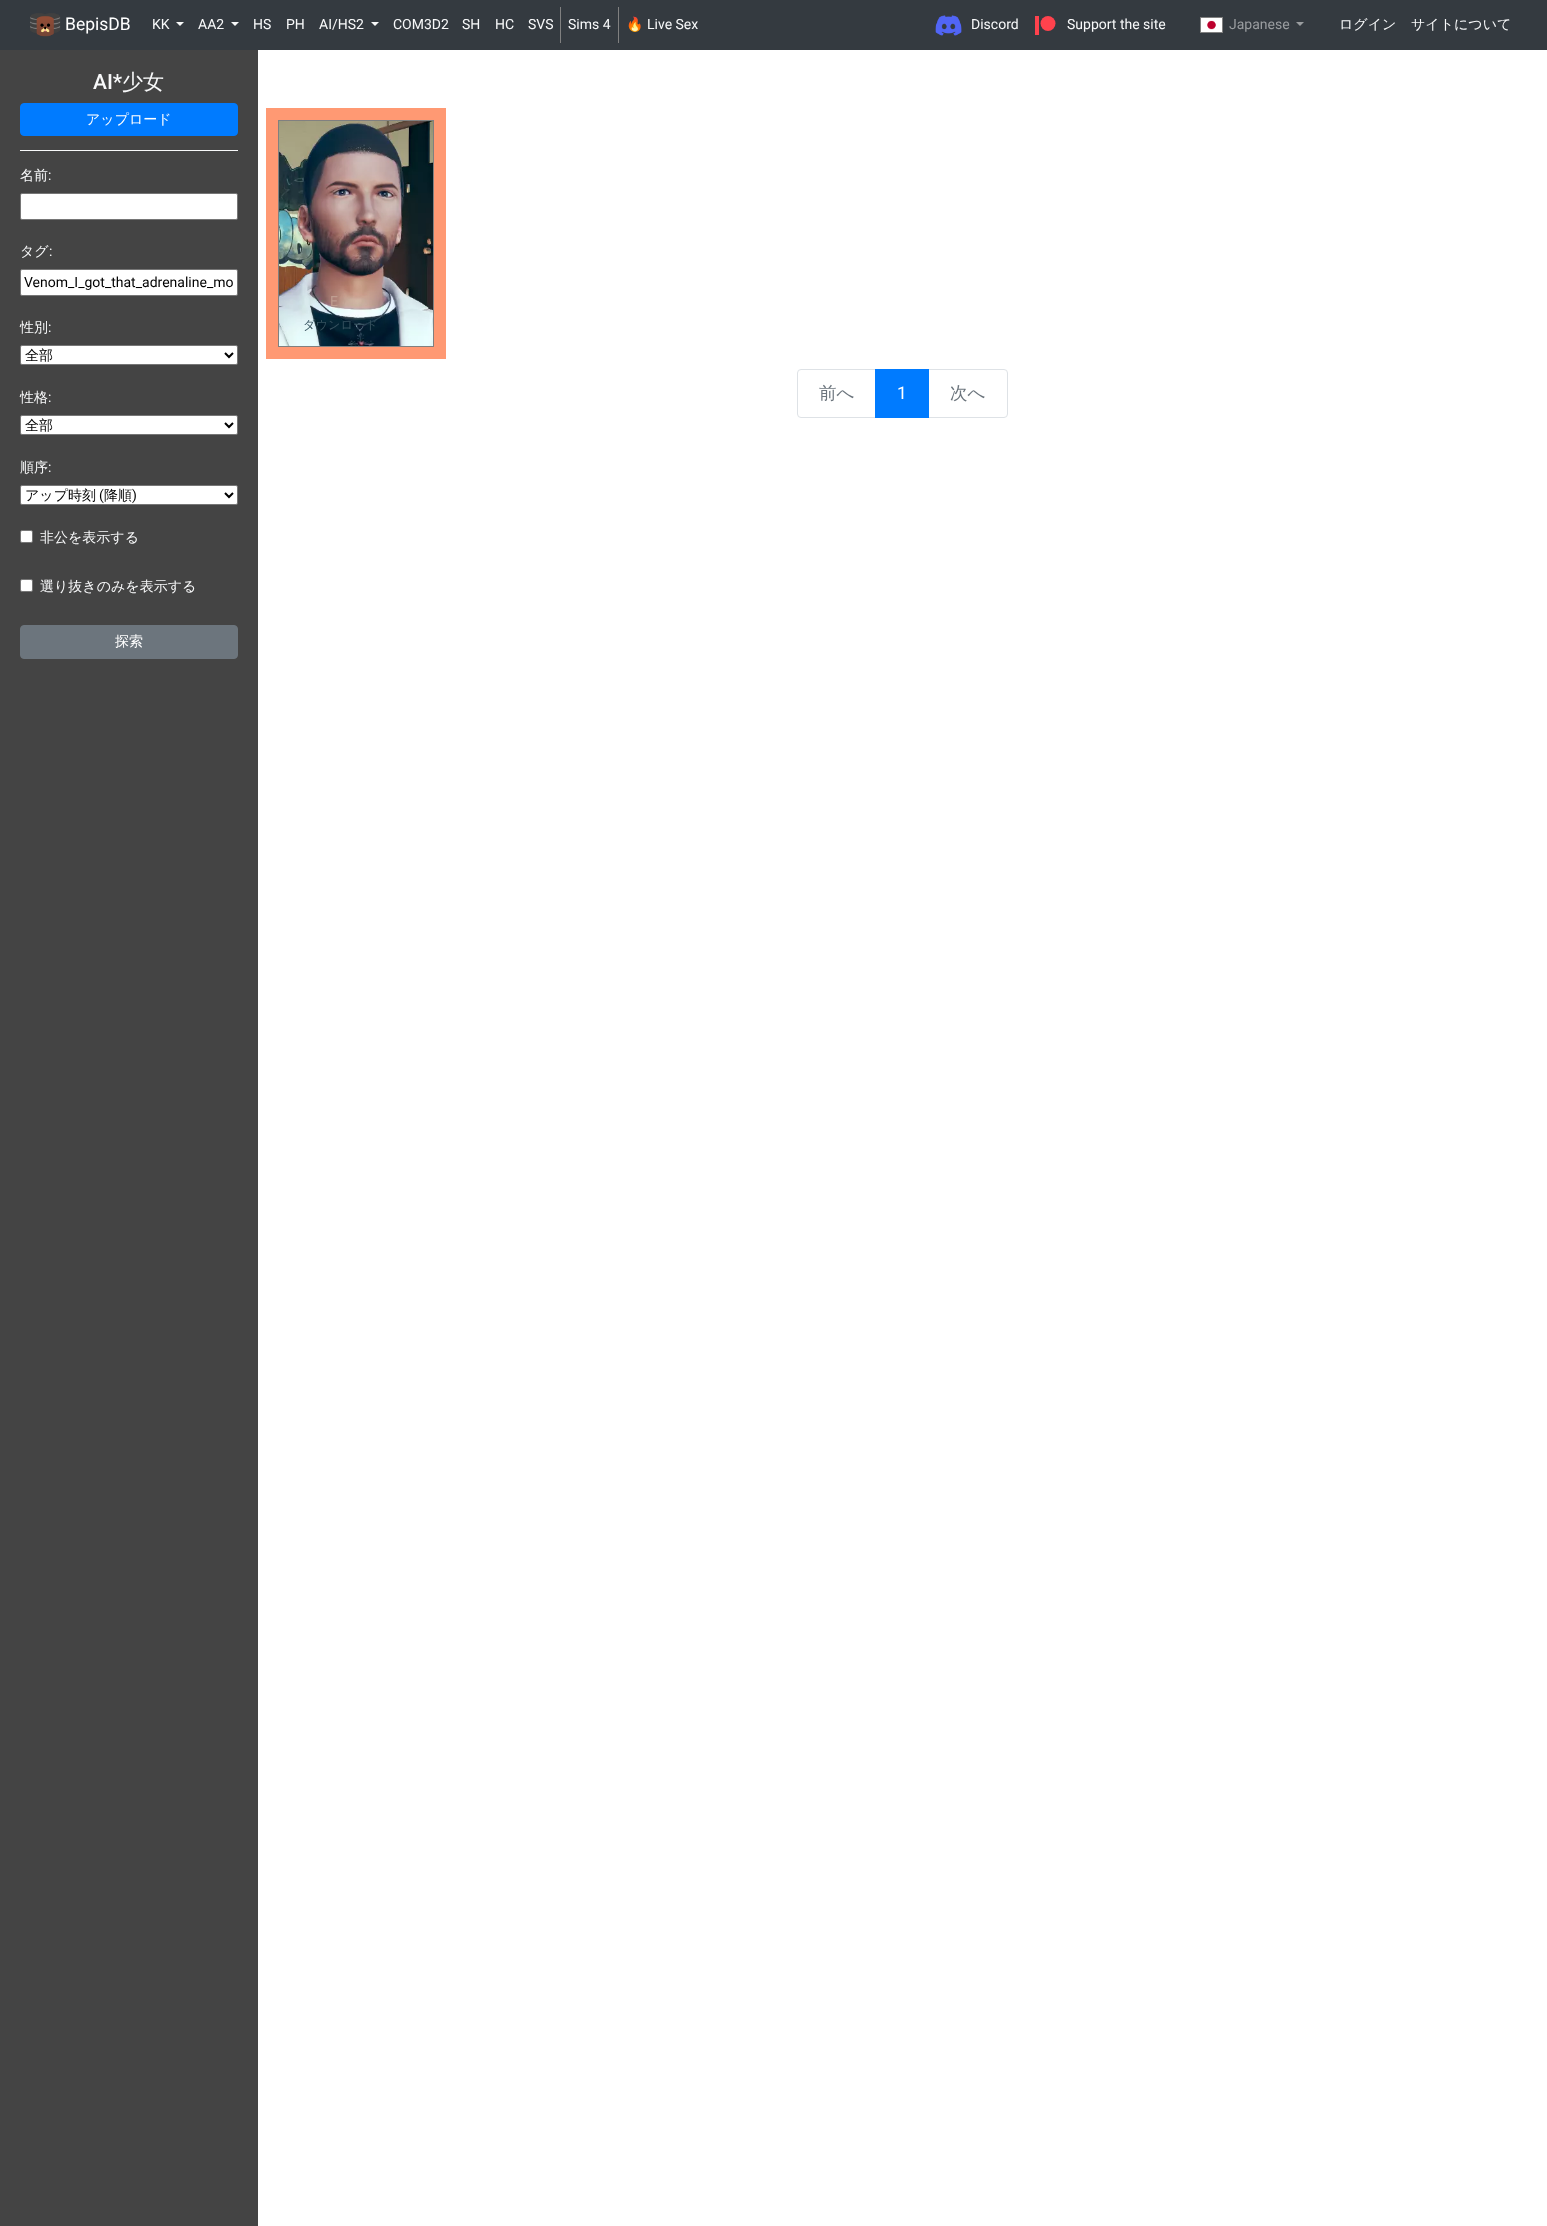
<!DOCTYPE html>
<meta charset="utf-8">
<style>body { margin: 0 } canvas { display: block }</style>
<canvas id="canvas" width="1547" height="2226"></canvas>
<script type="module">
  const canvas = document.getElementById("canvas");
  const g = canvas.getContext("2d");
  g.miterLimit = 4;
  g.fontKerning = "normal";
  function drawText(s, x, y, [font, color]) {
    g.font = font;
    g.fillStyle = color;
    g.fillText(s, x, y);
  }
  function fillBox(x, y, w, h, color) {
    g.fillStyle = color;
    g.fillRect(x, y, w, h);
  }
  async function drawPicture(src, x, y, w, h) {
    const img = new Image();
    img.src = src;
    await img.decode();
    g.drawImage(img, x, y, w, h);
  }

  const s1 = ["17.5px Roboto", "#FFFFFF"];
  const s2 = ["14px Roboto", "#F8F9FA"];
  const s3 = ["14px Noto Color Emoji", "#F8F9FA"];
  const s4 = ["14px Roboto", "#9A9DA0"];
  const s5 = ["500 14px WenQuanYi Zen Hei", "#F8F9FA"];
  const s6 = ["500 21px Roboto", "#F8F9FA"];
  const s7 = ["500 21px WenQuanYi Zen Hei", "#F8F9FA"];
  const s8 = ["500 14px WenQuanYi Zen Hei", "#FFFFFF"];
  const s9 = ["14px Roboto", "#000000"];
  const s10 = ["500 14px WenQuanYi Zen Hei", "#000000"];
  const s11 = ["14px Roboto", "#BF9E90"];
  const s12 = ["500 12.25px WenQuanYi Zen Hei", "#35515E"];
  const s13 = ["500 17.5px WenQuanYi Zen Hei", "#6C757D"];

  fillBox(0, 0, 1547, 2226, "#FFFFFF");
  fillBox(0, 0, 1547, 50, "#343A40");
  await drawPicture("pic1.png", 30, 13, 31, 24);
  drawText("BepisDB", 65, 30, s1);
  drawText("KK", 152, 29, s2);
  g.beginPath();
  g.moveTo(176, 22);
  g.lineTo(184, 22);
  g.lineTo(180, 26);
  g.closePath();
  g.fill();
  drawText("AA2", 198, 29, s2);
  g.beginPath();
  g.moveTo(231, 22);
  g.lineTo(239, 22);
  g.lineTo(235, 26);
  g.closePath();
  g.fill();
  drawText("HS", 253, 29, s2);
  drawText("PH", 286, 29, s2);
  drawText("AI/HS2", 319, 29, s2);
  g.beginPath();
  g.moveTo(371, 22);
  g.lineTo(379, 22);
  g.lineTo(375, 26);
  g.closePath();
  g.fill();
  drawText("COM3D2", 393, 29, s2);
  drawText("SH", 462, 29, s2);
  drawText("HC", 495, 29, s2);
  drawText("SVS", 528, 29, s2);
  fillBox(560, 7, 1, 36, "#808080");
  drawText("Sims 4", 568, 29, s2);
  fillBox(618, 7, 1, 36, "#808080");
  drawText("🔥", 626, 29, s3);
  drawText("Live Sex", 647, 29, s2);
  await drawPicture("pic2.png", 935, 15, 27, 21);
  drawText("Discord", 971, 29, s2);
  fillBox(1035, 16, 4, 19, "#FF424D");
  g.beginPath();
  g.arc(1048, 23.5, 7.5, 0, Math.PI * 2);
  g.fill();
  drawText("Support the site", 1067, 29, s2);
  g.strokeStyle = "#808080";
  g.strokeRect(1200.5, 17.5, 22, 15);
  await drawPicture("pic3.png", 1201, 18, 21, 14);
  drawText("Japanese", 1229, 29, s4);
  g.beginPath();
  g.moveTo(1296, 22);
  g.lineTo(1304, 22);
  g.lineTo(1300, 26);
  g.closePath();
  g.fill();
  drawText("ログイン", 1339, 29, s5);
  drawText("サイトについて", 1411, 29, s5);
  fillBox(0, 50, 258, 2176, "#444444");
  drawText("AI*", 93, 89, s6);
  drawText("少女", 122, 89, s7);
  g.fillStyle = "#007BFF";
  g.beginPath();
  g.roundRect(20.5, 103.5, 217, 32, 3.5);
  g.fill();
  g.strokeStyle = "#007BFF";
  g.stroke();
  drawText("アップロード", 86, 124, s8);
  fillBox(20, 150, 218, 1, "#F8F9FA");
  drawText("名前", 20, 180, s5);
  drawText(":", 48, 180, s2);
  g.fillStyle = "#FFFFFF";
  g.beginPath();
  g.roundRect(20.5, 193.5, 217, 26, 1.5);
  g.fill();
  g.strokeStyle = "#767676";
  g.stroke();
  drawText("タグ", 20, 256, s5);
  drawText(":", 49, 256, s2);
  g.fillStyle = "#FFFFFF";
  g.beginPath();
  g.roundRect(20.5, 269.5, 217, 26, 1.5);
  g.fill();
  g.stroke();
  drawText("Venom_I_got_that_adrenaline_mo", 24, 287, s9);
  drawText("性別", 20, 332, s5);
  drawText(":", 48, 332, s2);
  g.fillStyle = "#FFFFFF";
  g.beginPath();
  g.roundRect(20.5, 345.5, 217, 19, 1.5);
  g.fill();
  g.stroke();
  g.beginPath();
  g.moveTo(225, 353);
  g.lineTo(229, 357);
  g.lineTo(233, 353);
  g.strokeStyle = "#000000";
  g.lineWidth = 2;
  g.stroke();
  drawText("全部", 25, 360, s10);
  drawText("性格", 20, 402, s5);
  drawText(":", 48, 402, s2);
  g.fillStyle = "#FFFFFF";
  g.beginPath();
  g.roundRect(20.5, 415.5, 217, 19, 1.5);
  g.fill();
  g.strokeStyle = "#767676";
  g.lineWidth = 1;
  g.stroke();
  g.beginPath();
  g.moveTo(225, 423);
  g.lineTo(229, 427);
  g.lineTo(233, 423);
  g.strokeStyle = "#000000";
  g.lineWidth = 2;
  g.stroke();
  drawText("全部", 25, 430, s10);
  drawText("順序", 20, 472, s5);
  drawText(":", 48, 472, s2);
  g.fillStyle = "#FFFFFF";
  g.beginPath();
  g.roundRect(20.5, 485.5, 217, 19, 1.5);
  g.fill();
  g.strokeStyle = "#767676";
  g.lineWidth = 1;
  g.stroke();
  g.beginPath();
  g.moveTo(225, 493);
  g.lineTo(229, 497);
  g.lineTo(233, 493);
  g.strokeStyle = "#000000";
  g.lineWidth = 2;
  g.stroke();
  drawText("アップ時刻", 25, 500, s10);
  drawText("(", 99, 500, s9);
  drawText("降順", 104, 500, s10);
  drawText(")", 132, 500, s9);
  g.fillStyle = "#FFFFFF";
  g.beginPath();
  g.roundRect(20.5, 530.5, 12, 12, 1.5);
  g.fill();
  g.strokeStyle = "#767676";
  g.lineWidth = 1;
  g.stroke();
  drawText("非公を表示する", 40, 542, s5);
  g.fillStyle = "#FFFFFF";
  g.beginPath();
  g.roundRect(20.5, 579.5, 12, 12, 1.5);
  g.fill();
  g.stroke();
  drawText("選り抜きのみを表示する", 40, 591, s5);
  g.fillStyle = "#6C757D";
  g.beginPath();
  g.roundRect(20.5, 625.5, 217, 33, 3.5);
  g.fill();
  g.strokeStyle = "#6C757D";
  g.stroke();
  drawText("探索", 115, 646, s8);
  fillBox(266, 108, 180, 251, "#FF9973");
  g.strokeStyle = "#808080";
  g.strokeRect(278.5, 120.5, 155, 226);
  await drawPicture("pic4.png", 279, 121, 154, 225);
  drawText("E", 330, 306, s11);
  drawText("ダウンロード", 303, 329, s12);
  g.beginPath();
  g.roundRect(797.5, 369.5, 78, 48, [3.5, 0, 0, 3.5]);
  g.strokeStyle = "#DEE2E6";
  g.stroke();
  drawText("前へ", 819, 399, s13);
  g.beginPath();
  g.roundRect(928.5, 369.5, 79, 48, [0, 3.5, 3.5, 0]);
  g.stroke();
  fillBox(875, 369, 54, 49, "#007BFF");
  drawText("1", 897, 399, s1);
  drawText("次へ", 950, 399, s13);
</script>
